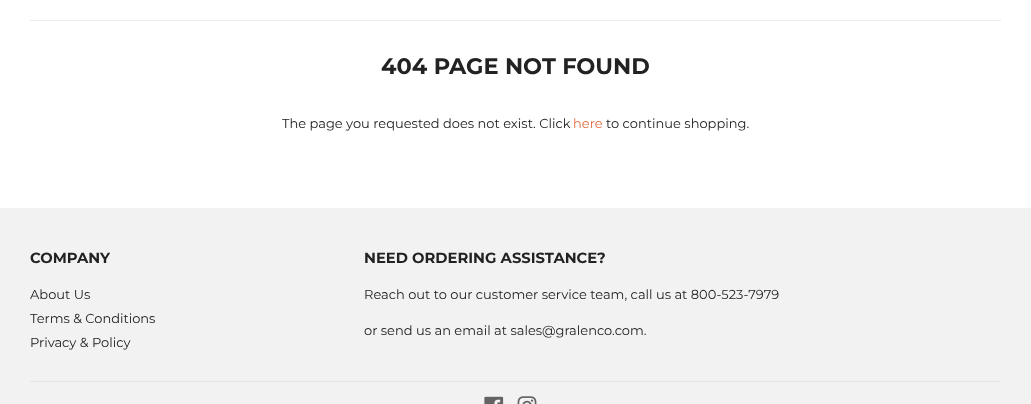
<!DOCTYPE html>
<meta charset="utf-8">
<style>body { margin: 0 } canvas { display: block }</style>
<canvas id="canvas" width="1031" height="404"></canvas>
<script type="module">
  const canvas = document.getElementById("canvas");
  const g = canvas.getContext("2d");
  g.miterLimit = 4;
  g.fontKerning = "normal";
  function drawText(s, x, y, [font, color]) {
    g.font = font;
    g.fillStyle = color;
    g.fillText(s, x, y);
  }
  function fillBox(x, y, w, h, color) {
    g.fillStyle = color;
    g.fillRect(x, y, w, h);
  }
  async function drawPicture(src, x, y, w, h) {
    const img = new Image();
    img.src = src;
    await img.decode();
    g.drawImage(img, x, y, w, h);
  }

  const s1 = ["bold 22.5px Montserrat", "#222222"];
  const s2 = ["13px Montserrat", "#222222"];
  const s3 = ["13px Montserrat", "#E36F42"];
  const s4 = ["bold 14.75px Montserrat", "#222222"];

  fillBox(0, 0, 1031, 404, "#FFFFFF");
  fillBox(30, 20, 971, 1, "#ECECEC");
  drawText("404 PAGE NOT FOUND", 381, 74, s1);
  drawText("The page you requested does not exist. Click", 282, 128, s2);
  drawText("here", 573, 128, s3);
  drawText("to continue shopping.", 606, 128, s2);
  fillBox(0, 208, 1031, 196, "#F2F2F2");
  drawText("COMPANY", 30, 263, s4);
  drawText("About Us", 30, 299, s2);
  drawText("Terms & Conditions", 30, 323, s2);
  drawText("Privacy & Policy", 30, 347, s2);
  drawText("NEED ORDERING ASSISTANCE?", 364, 263, s4);
  drawText("Reach out to our customer service team, call us at 800-523-7979", 364, 299, s2);
  drawText("or send us an email at sales@gralenco.com.", 364, 335, s2);
  fillBox(30, 381, 971, 1, "#E5E5E5");
  await drawPicture("pic1.png", 484, 396, 20, 8);
  await drawPicture("pic2.png", 517, 396, 20, 8);
</script>
